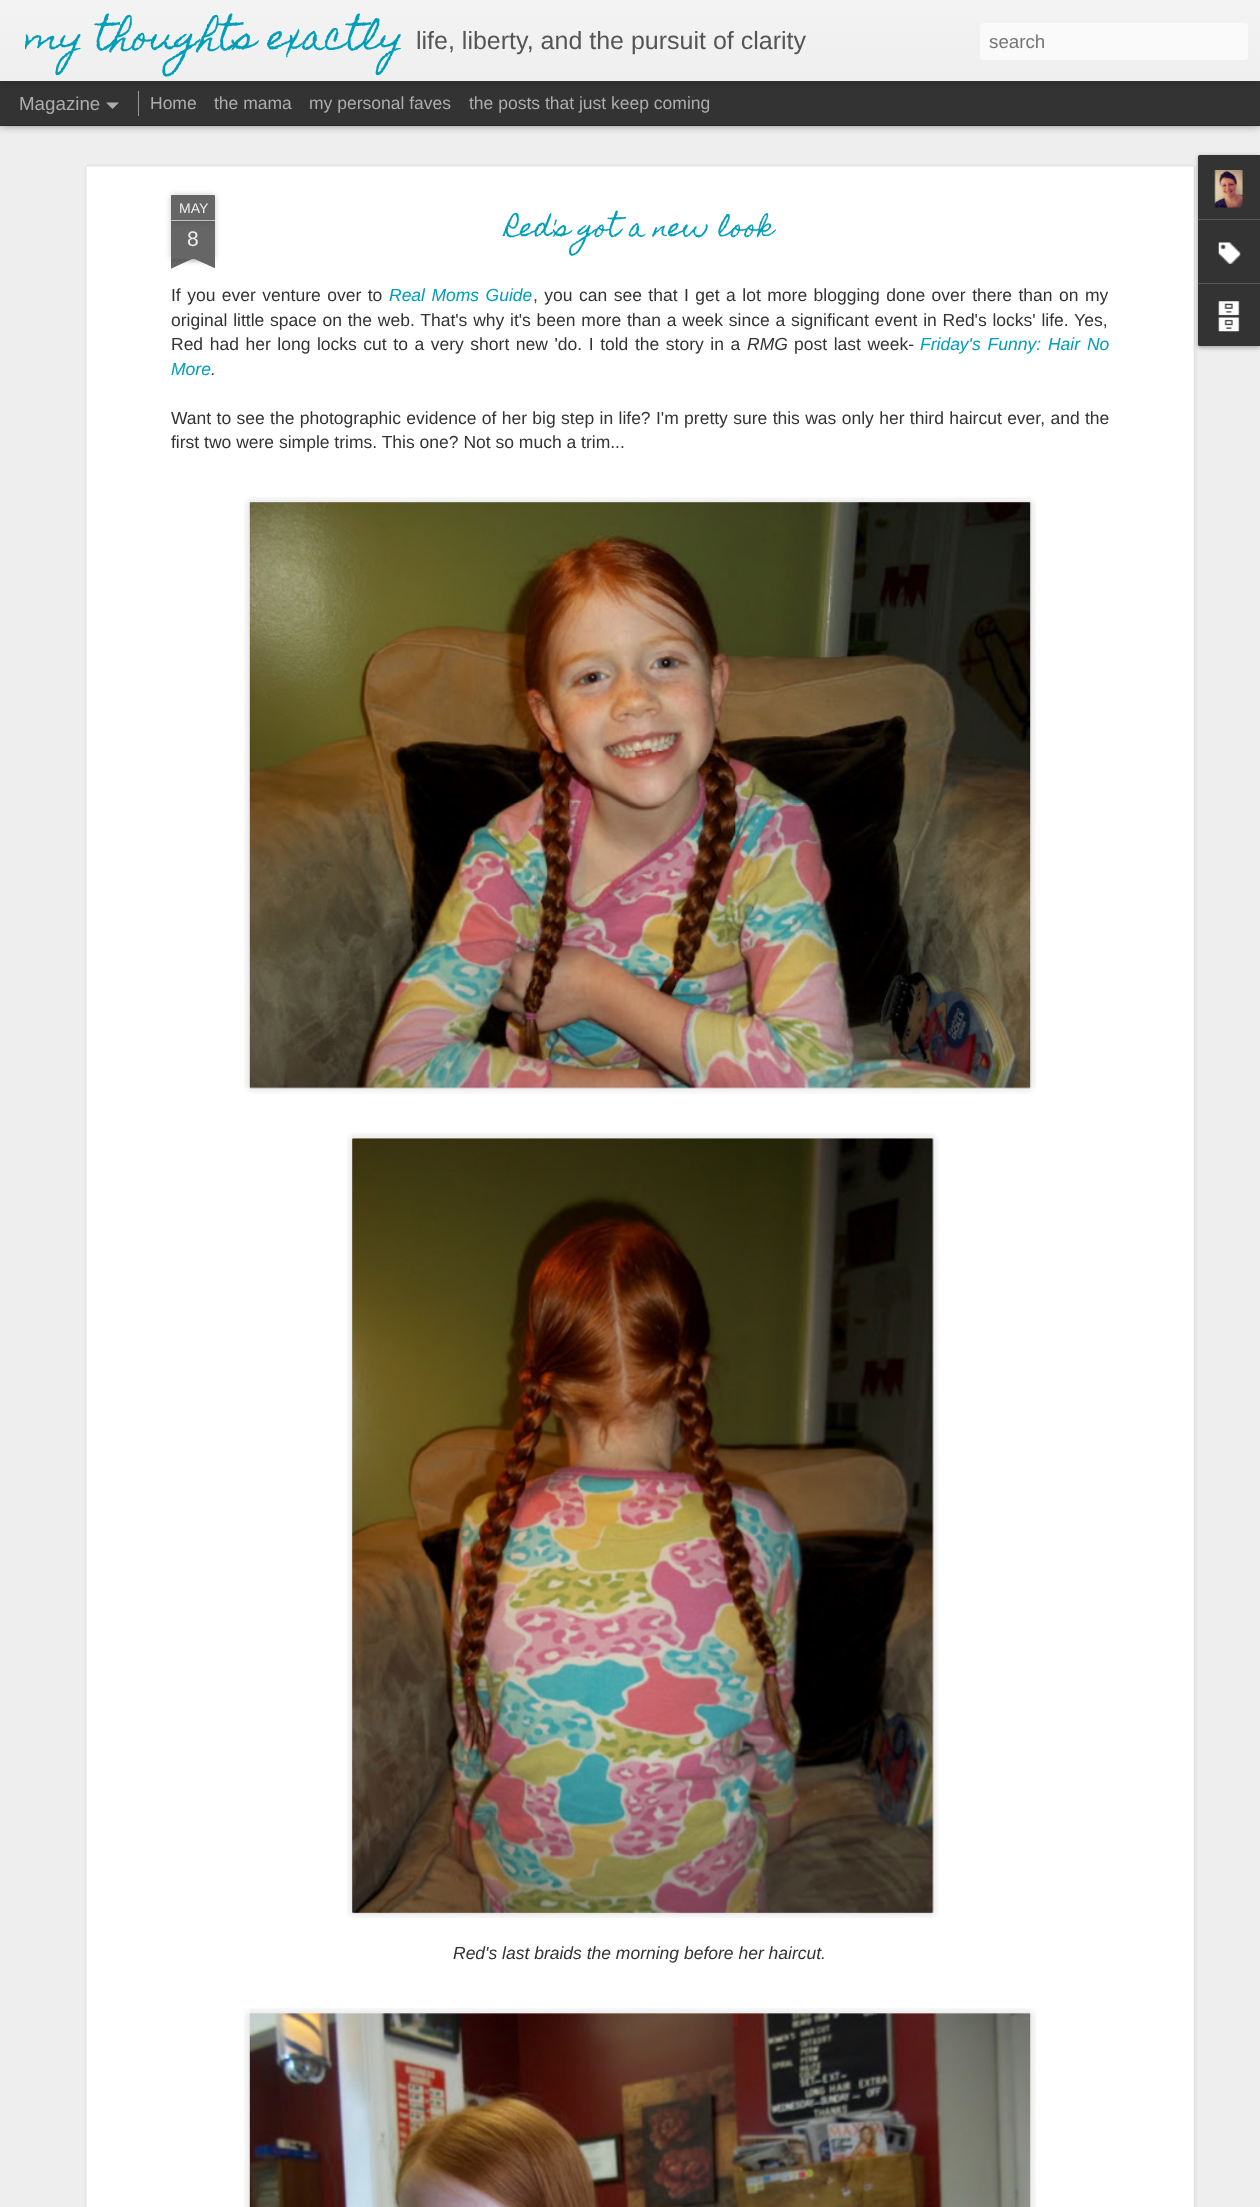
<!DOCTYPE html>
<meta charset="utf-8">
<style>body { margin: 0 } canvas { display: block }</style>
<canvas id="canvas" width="1260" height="2207"></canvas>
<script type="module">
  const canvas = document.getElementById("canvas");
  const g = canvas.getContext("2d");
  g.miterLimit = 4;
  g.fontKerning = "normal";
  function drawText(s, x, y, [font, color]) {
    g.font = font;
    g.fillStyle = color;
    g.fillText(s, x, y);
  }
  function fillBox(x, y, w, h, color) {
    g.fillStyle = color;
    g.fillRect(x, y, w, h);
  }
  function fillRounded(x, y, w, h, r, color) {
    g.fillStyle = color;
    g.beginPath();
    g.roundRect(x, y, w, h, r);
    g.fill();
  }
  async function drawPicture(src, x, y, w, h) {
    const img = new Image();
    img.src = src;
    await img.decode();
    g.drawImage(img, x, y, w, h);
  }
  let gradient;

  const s1 = ["35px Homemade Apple", "#009EB8"];
  const s2 = ["25px Liberation Sans", "#555555"];
  const s3 = ["18.75px Liberation Sans", "#757575"];
  const s4 = ["18.75px Liberation Sans", "#ADADAD"];
  const s5 = ["17.5px Liberation Sans", "#ADADAD"];
  const s6 = ["14px Liberation Sans", "#EEEEEE"];
  const s7 = ["21px Liberation Sans", "#EEEEEE"];
  const s8 = ["25px Homemade Apple", "#009EB8"];
  const s9 = ["17.5px Liberation Sans", "#333333"];
  const s10 = ["italic 17.5px Liberation Sans", "#009EB8"];
  const s11 = ["italic 17.5px Liberation Sans", "#333333"];

  fillBox(0, 0, 1260, 2207, "#333333");
  fillBox(0, 126, 1260, 2081, "#EEEEEE");
  g.fillStyle = "rgba(0, 0, 0, 0.5)";
  g.filter = "blur(5px)";
  g.beginPath();
  g.rect(0, 81, 1260, 44);
  g.fill();
  g.filter = "none";
  fillBox(0, 81, 1260, 44, "#333333");
  g.fillStyle = "rgba(0, 0, 0, 0.3)";
  g.filter = "blur(3px)";
  g.beginPath();
  g.rect(0, 0, 1260, 81);
  g.fill();
  g.filter = "none";
  gradient = g.createLinearGradient(0, 0, 0, 81);
  gradient.addColorStop(0, "#F3F3F3");
  gradient.addColorStop(1, "#EFEFEF");
  g.fillStyle = gradient;
  g.fillRect(0, 0, 1260, 81);
  g.save();
  g.beginPath();
  g.rect(25, 0, 941, 81);
  g.clip();
  drawText("my thoughts exactly", 25, 49, s1);
  g.restore();
  drawText("life, liberty, and the pursuit of clarity", 416, 49, s2);
  fillRounded(980, 23, 268, 37, 4, "#FAFAFA");
  drawText("search", 989, 48, s3);
  drawText("Magazine", 19, 110, s4);
  g.beginPath();
  g.moveTo(106, 102.5);
  g.lineTo(119, 102.5);
  g.lineTo(112.5, 109);
  g.closePath();
  g.fill();
  fillBox(138, 91, 1, 25, "#999999");
  drawText("Home", 150, 109, s5);
  drawText("the mama", 214, 109, s5);
  drawText("my personal faves", 309, 109, s5);
  drawText("the posts that just keep coming", 469, 109, s5);
  fillBox(84, 164, 1112, 2043, "#FFFFFF");
  await drawPicture("pic1.png", 84, 164, 1113, 2043);
  g.fillStyle = "rgba(0, 0, 0, 0.2)";
  g.filter = "blur(3px)";
  g.beginPath();
  g.rect(171, 221, 44, 38);
  g.fill();
  g.filter = "none";
  fillBox(171, 221, 44, 38, "#666666");
  g.fillStyle = "rgba(0, 0, 0, 0.2)";
  g.filter = "blur(3px)";
  g.beginPath();
  g.roundRect(171, 195, 44, 26, 1);
  g.fill();
  g.filter = "none";
  g.fillStyle = "#666666";
  g.beginPath();
  g.roundRect(171, 195, 44, 26, [1, 1, 0, 0]);
  g.fill();
  fillBox(171, 220, 44, 1, "#C2C2C2");
  drawText("MAY", 179, 213, s6);
  drawText("8", 187, 246, s7);
  g.save();
  g.beginPath();
  g.rect(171, 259, 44, 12);
  g.clip();
  g.fillStyle = "rgba(0, 0, 0, 0.2)";
  g.filter = "blur(3px)";
  g.beginPath();
  g.rect(160, 246, 63, 13);
  g.fill();
  g.filter = "none";
  g.restore();
  g.save();
  g.beginPath();
  g.rect(171, 259, 44, 12);
  g.clip();
  g.fillStyle = "#666666";
  g.beginPath();
  g.moveTo(160, 260);
  g.lineTo(217, 234);
  g.lineTo(222, 245);
  g.lineTo(166, 271);
  g.closePath();
  g.fill();
  g.restore();
  g.save();
  g.beginPath();
  g.rect(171, 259, 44, 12);
  g.clip();
  g.fillStyle = "rgba(0, 0, 0, 0.2)";
  g.filter = "blur(3px)";
  g.beginPath();
  g.rect(164, 246, 62, 13);
  g.fill();
  g.filter = "none";
  g.restore();
  g.save();
  g.beginPath();
  g.rect(171, 259, 44, 12);
  g.clip();
  g.fillStyle = "#666666";
  g.beginPath();
  g.moveTo(169, 234);
  g.lineTo(226, 260);
  g.lineTo(221, 271);
  g.lineTo(164, 245);
  g.closePath();
  g.fill();
  g.restore();
  drawText("Red's got a new look", 506, 236, s8);
  g.wordSpacing = "1.6px";
  drawText("If you ever venture over to", 171, 301, s9);
  drawText("Real Moms Guide", 389, 301, s10);
  drawText(", you can see that I get a lot more blogging done over there than on my", 533, 301, s9);
  g.wordSpacing = "0.9px";
  drawText("original little space on the web. That's why it's been more than a week since a significant event in Red's locks' life. Yes,", 171, 326, s9);
  g.wordSpacing = "1.7px";
  drawText("Red had her long locks cut to a very short new 'do. I told the story in a", 171, 350, s9);
  g.wordSpacing = "0px";
  drawText("RMG", 747, 350, s11);
  g.wordSpacing = "1.7px";
  drawText("post last week-", 794, 350, s9);
  g.wordSpacing = "2px";
  drawText("Friday's Funny: Hair No", 920, 350, s10);
  g.wordSpacing = "0px";
  drawText("More", 171, 375, s10);
  drawText(".", 211, 375, s11);
  g.wordSpacing = "0.5px";
  drawText("Want to see the photographic evidence of her big step in life? I'm pretty sure this was only her third haircut ever, and the", 171, 424, s9);
  g.wordSpacing = "0px";
  drawText("first two were simple trims. This one? Not so much a trim...", 171, 448, s9);
  await drawPicture("pic2.png", 244, 497, 792, 597);
  await drawPicture("pic3.png", 249, 502, 783, 587);
  await drawPicture("pic4.png", 347, 1133, 592, 785);
  await drawPicture("pic5.png", 352, 1138, 582, 776);
  drawText("Red's last braids the morning before her haircut.", 453, 1959, s11);
  await drawPicture("pic6.png", 244, 2008, 792, 199);
  await drawPicture("pic7.png", 249, 2013, 782, 194);
  g.fillStyle = "rgba(0, 0, 0, 0.3)";
  g.filter = "blur(2px)";
  g.beginPath();
  g.roundRect(1198, 156, 62, 192, 2.5);
  g.fill();
  g.filter = "none";
  g.fillStyle = "#333333";
  g.beginPath();
  g.roundRect(1198, 155, 62, 191, [2.5, 0, 0, 2.5]);
  g.fill();
  g.beginPath();
  g.roundRect(1198, 155, 62, 64, [2.5, 0, 0, 0]);
  g.fill();
  await drawPicture("pic8.png", 1214, 170, 29, 38);
  fillBox(1198, 219, 62, 1, "#585858");
  await drawPicture("pic9.png", 1218, 242, 23, 22);
  g.fillStyle = "#333333";
  g.beginPath();
  g.roundRect(1198, 283, 62, 63, [0, 0, 0, 2.5]);
  g.fill();
  fillBox(1198, 283, 62, 1, "#585858");
  await drawPicture("pic10.png", 1218, 301, 22, 31);
</script>
